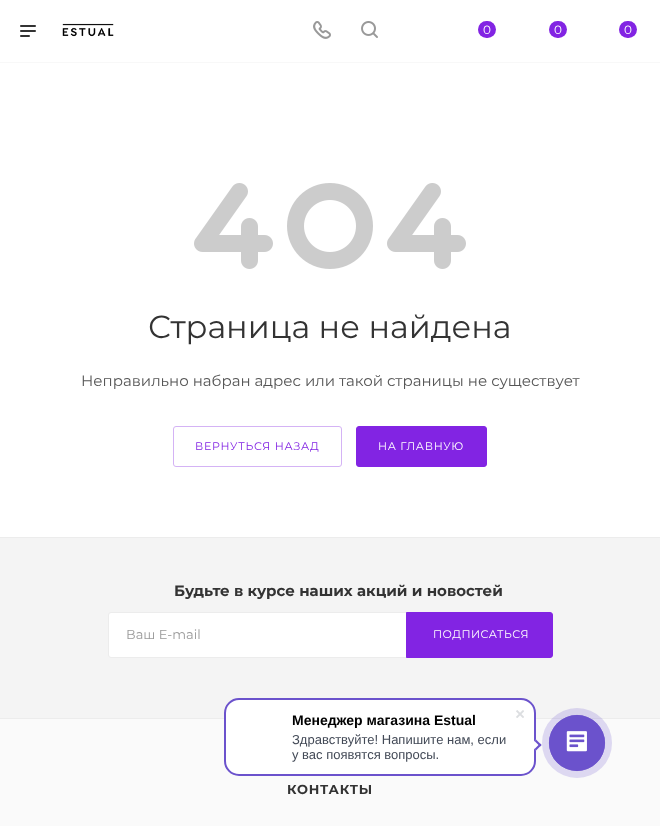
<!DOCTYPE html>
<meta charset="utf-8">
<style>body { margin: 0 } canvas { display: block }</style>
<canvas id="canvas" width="660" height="826"></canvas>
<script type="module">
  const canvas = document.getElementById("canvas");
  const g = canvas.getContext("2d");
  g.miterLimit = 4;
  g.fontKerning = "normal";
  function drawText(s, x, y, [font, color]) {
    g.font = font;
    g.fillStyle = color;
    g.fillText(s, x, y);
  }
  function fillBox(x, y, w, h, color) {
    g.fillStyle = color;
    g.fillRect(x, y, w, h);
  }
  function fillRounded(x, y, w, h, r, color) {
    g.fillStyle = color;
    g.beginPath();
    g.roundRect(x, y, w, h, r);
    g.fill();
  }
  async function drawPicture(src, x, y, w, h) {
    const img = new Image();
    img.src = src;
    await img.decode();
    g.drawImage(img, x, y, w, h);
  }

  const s1 = ["12px Montserrat", "#FFFFFF"];
  const s2 = ["32px Montserrat", "#333333"];
  const s3 = ["15px Montserrat", "#555555"];
  const s4 = ["11px Montserrat", "#8224E3"];
  const s5 = ["11px Montserrat", "#FFFFFF"];
  const s6 = ["bold 15px Montserrat", "#333333"];
  const s7 = ["13px Montserrat", "#999999"];
  const s8 = ["bold 13px Montserrat", "#333333"];
  const s9 = ["bold 14px Liberation Sans", "#000000"];
  const s10 = ["13px Liberation Sans", "#424956"];

  fillBox(0, 0, 660, 826, "#FFFFFF");
  fillBox(0, 62, 660, 1, "#F8F8F8");
  await drawPicture("pic1.png", 20, 25, 16, 12);
  await drawPicture("pic2.png", 62, 23, 52, 14);
  await drawPicture("pic3.png", 313, 21, 18, 18);
  await drawPicture("pic4.png", 361, 21, 17, 17);
  fillRounded(478, 21, 18, 17, 8.5, "#8224E3");
  drawText("0", 483, 34, s1);
  fillRounded(549, 21, 18, 17, 8.5, "#8224E3");
  drawText("0", 554, 34, s1);
  fillRounded(619, 21, 18, 17, 8.5, "#8224E3");
  drawText("0", 624, 34, s1);
  await drawPicture("pic5.png", 194, 183, 272, 86);
  drawText("Страница не найдена", 148, 338, s2);
  drawText("Неправильно набран адрес или такой страницы не существует", 81, 386, s3);
  g.beginPath();
  g.roundRect(173.5, 426.5, 168, 40, 2.5);
  g.strokeStyle = "#D4B3F5";
  g.stroke();
  g.letterSpacing = "0.75px";
  drawText("ВЕРНУТЬСЯ НАЗАД", 195, 450, s4);
  g.beginPath();
  g.roundRect(356.5, 426.5, 130, 40, 2.5);
  g.fill();
  g.strokeStyle = "#8224E3";
  g.stroke();
  drawText("НА ГЛАВНУЮ", 378, 450, s5);
  fillBox(0, 719, 660, 107, "#FAFAFA");
  fillBox(0, 537, 660, 1, "#ECECEC");
  fillBox(0, 538, 660, 180, "#F4F4F4");
  g.letterSpacing = "0px";
  drawText("Будьте в курсе наших акций и новостей", 174, 596, s6);
  g.fillStyle = "#FFFFFF";
  g.beginPath();
  g.roundRect(108.5, 612.5, 444, 45, 2.5);
  g.fill();
  g.strokeStyle = "#ECECEC";
  g.stroke();
  drawText("Ваш E-mail", 126, 639, s7);
  g.fillStyle = "#8224E3";
  g.beginPath();
  g.roundRect(406.5, 612.5, 146, 45, [0, 2.5, 2.5, 0]);
  g.fill();
  g.strokeStyle = "#8224E3";
  g.stroke();
  g.letterSpacing = "0.5px";
  drawText("ПОДПИСАТЬСЯ", 433, 638, s5);
  fillBox(0, 718, 660, 1, "#ECECEC");
  g.letterSpacing = "0.75px";
  drawText("КОНТАКТЫ", 287, 794, s8);
  g.fillStyle = "#FFFFFF";
  g.beginPath();
  g.roundRect(225, 699, 310, 76, 14);
  g.fill();
  g.strokeStyle = "#6B52CC";
  g.lineWidth = 2;
  g.stroke();
  g.letterSpacing = "0px";
  drawText("Менеджер магазина Estual", 292, 725, s9);
  drawText("Здравствуйте! Напишите нам, если", 292, 744, s10);
  drawText("у вас появятся вопросы.", 292, 759, s10);
  await drawPicture("pic6.png", 516, 710, 8, 8);
  g.fillStyle = "#FFFFFF";
  g.beginPath();
  g.moveTo(530.5, 745);
  g.lineTo(536, 739.5);
  g.lineTo(541.5, 745);
  g.lineTo(536, 750.5);
  g.closePath();
  g.fill();
  g.fillStyle = "#6B52CC";
  g.beginPath();
  g.moveTo(534.5, 741);
  g.lineTo(536, 739.5);
  g.lineTo(541.5, 745);
  g.lineTo(540, 746.5);
  g.closePath();
  g.fill();
  g.beginPath();
  g.moveTo(534.5, 749);
  g.lineTo(540, 743.5);
  g.lineTo(541.5, 745);
  g.lineTo(536, 750.5);
  g.closePath();
  g.fill();
  g.fillStyle = "rgba(107, 82, 204, 0.2)";
  g.beginPath();
  g.arc(577, 743, 35, 0, Math.PI * 2);
  g.fill();
  g.beginPath();
  g.arc(577, 743, 27.6, 0, Math.PI * 2);
  g.lineWidth = 0.8;
  g.stroke();
  g.fillStyle = "#6B52CC";
  g.beginPath();
  g.arc(577, 743, 28, 0, Math.PI * 2);
  g.fill();
  await drawPicture("pic7.png", 566, 731, 21, 21);
</script>
